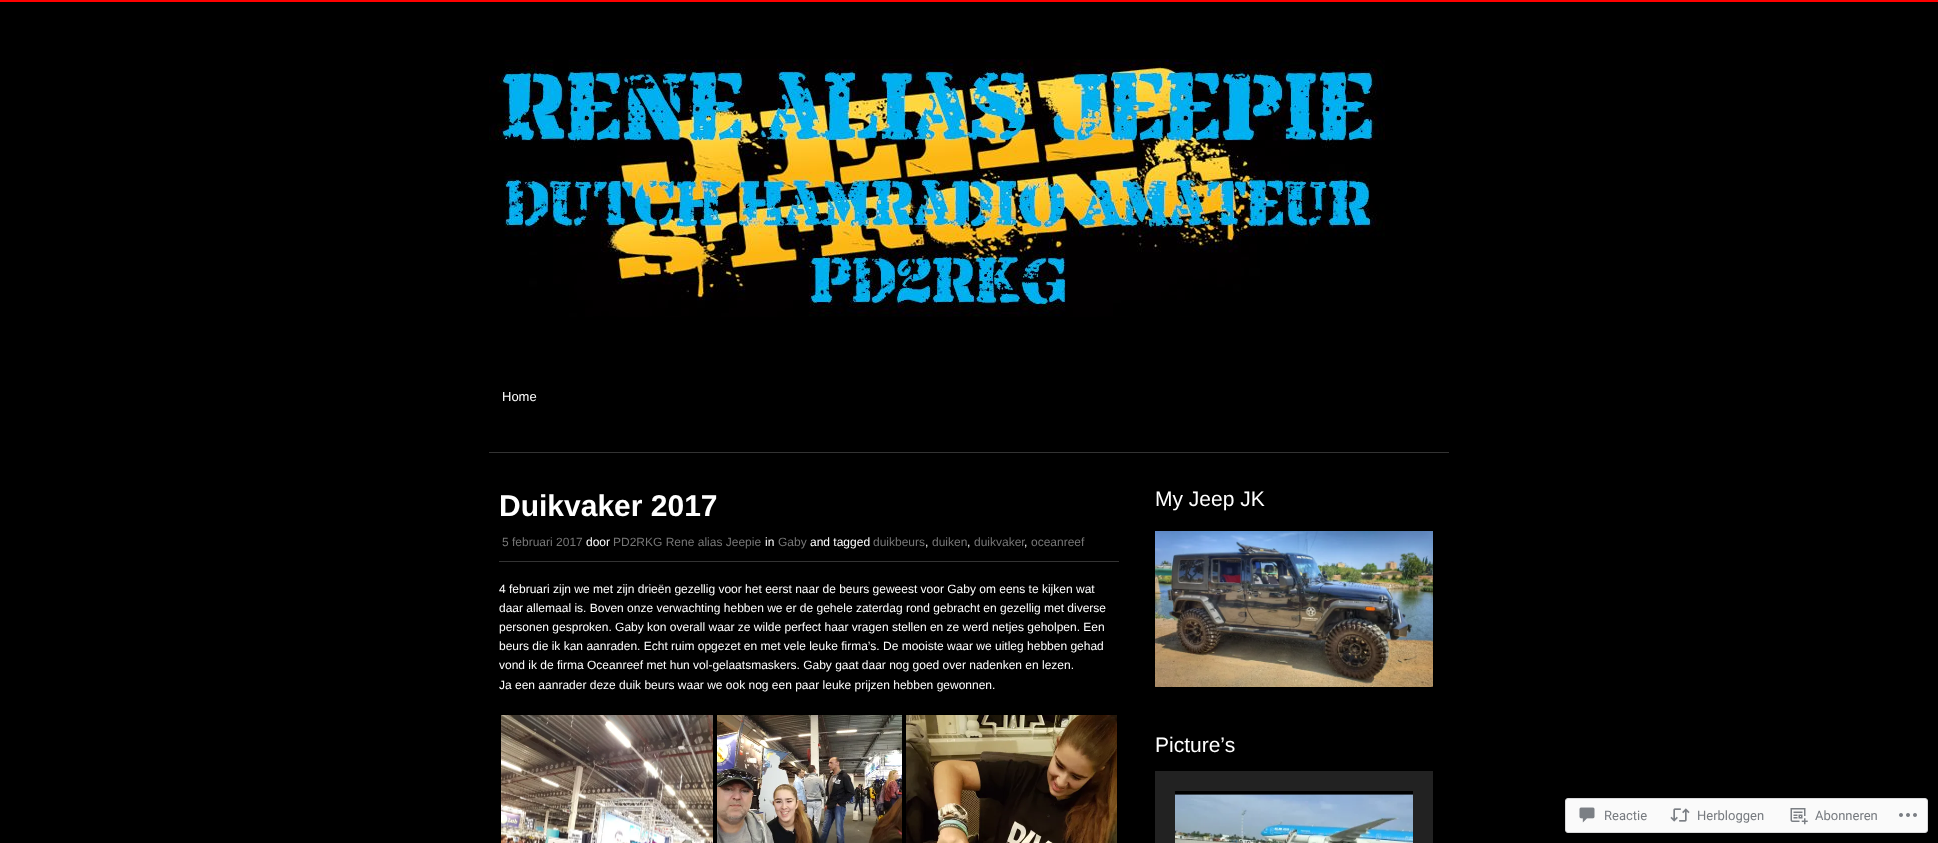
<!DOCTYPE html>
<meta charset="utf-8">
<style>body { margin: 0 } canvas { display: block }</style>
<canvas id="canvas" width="1938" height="843"></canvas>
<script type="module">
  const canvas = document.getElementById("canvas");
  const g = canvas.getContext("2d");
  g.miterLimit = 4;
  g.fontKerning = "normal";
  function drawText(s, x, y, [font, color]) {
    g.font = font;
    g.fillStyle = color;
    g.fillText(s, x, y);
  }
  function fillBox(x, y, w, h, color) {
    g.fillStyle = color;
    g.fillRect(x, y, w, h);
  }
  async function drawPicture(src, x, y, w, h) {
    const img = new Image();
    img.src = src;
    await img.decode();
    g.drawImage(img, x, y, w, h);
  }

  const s1 = ["13px Liberation Sans", "#FFFFFF"];
  const s2 = ["bold 30px Liberation Sans", "#FFFFFF"];
  const s3 = ["12px Liberation Sans", "#777777"];
  const s4 = ["12px Liberation Sans", "#FFFFFF"];
  const s5 = ["21px Liberation Sans", "#FFFFFF"];
  const s6 = ["13px Roboto", "#767A7F"];

  fillBox(0, 0, 1938, 843, "#000000");
  fillBox(0, 0, 1938, 2, "#FF0000");
  fillBox(489, 452, 960, 1, "#333333");
  await drawPicture("pic1.png", 489, 59, 896, 258);
  drawText("Home", 502, 401, s1);
  fillBox(499, 561, 620, 1, "#333333");
  drawText("Duikvaker 2017", 499, 516, s2);
  drawText("5 februari 2017", 502, 546, s3);
  drawText("door", 586, 546, s4);
  drawText("PD2RKG Rene alias Jeepie", 613, 546, s3);
  drawText("in", 765, 546, s4);
  drawText("Gaby", 778, 546, s3);
  drawText("and tagged", 810, 546, s4);
  drawText("duikbeurs", 873, 546, s3);
  drawText(",", 925, 546, s4);
  drawText("duiken", 932, 546, s3);
  drawText(",", 967, 546, s4);
  drawText("duikvaker", 974, 546, s3);
  drawText(",", 1024, 546, s4);
  drawText("oceanreef", 1031, 546, s3);
  drawText("4 februari zijn we met zijn drieën gezellig voor het eerst naar de beurs geweest voor Gaby om eens te kijken wat", 499, 593, s4);
  drawText("daar allemaal is. Boven onze verwachting hebben we er de gehele zaterdag rond gebracht en gezellig met diverse", 499, 612, s4);
  drawText("personen gesproken. Gaby kon overall waar ze wilde perfect haar vragen stellen en ze werd netjes geholpen. Een", 499, 631, s4);
  drawText("beurs die ik kan aanraden. Echt ruim opgezet en met vele leuke firma’s. De mooiste waar we uitleg hebben gehad", 499, 650, s4);
  drawText("vond ik de firma Oceanreef met hun vol-gelaatsmaskers. Gaby gaat daar nog goed over nadenken en lezen.", 499, 669, s4);
  drawText("Ja een aanrader deze duik beurs waar we ook nog een paar leuke prijzen hebben gewonnen.", 499, 689, s4);
  await drawPicture("pic2.png", 501, 715, 212, 128);
  await drawPicture("pic3.png", 717, 715, 185, 128);
  await drawPicture("pic4.png", 906, 715, 211, 128);
  drawText("My Jeep JK", 1155, 506, s5);
  await drawPicture("pic5.png", 1155, 531, 278, 156);
  drawText("Picture’s", 1155, 752, s5);
  g.beginPath();
  g.rect(1165, 781, 258, 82);
  g.strokeStyle = "#222222";
  g.lineWidth = 20;
  g.stroke();
  await drawPicture("pic6.png", 1175, 794, 238, 49);
  g.fillStyle = "#FAFAFA";
  g.beginPath();
  g.roundRect(1565.5, 798.5, 362, 34, 2.5);
  g.fill();
  g.strokeStyle = "#D8D8DA";
  g.lineWidth = 1;
  g.stroke();
  await drawPicture("pic7.png", 1579, 807, 16, 16);
  drawText("Reactie", 1604, 820, s6);
  await drawPicture("pic8.png", 1670, 808, 20, 14);
  drawText("Herbloggen", 1697, 820, s6);
  await drawPicture("pic9.png", 1790, 808, 18, 17);
  drawText("Abonneren", 1815, 820, s6);
  await drawPicture("pic10.png", 1899, 813, 18, 4);
</script>
